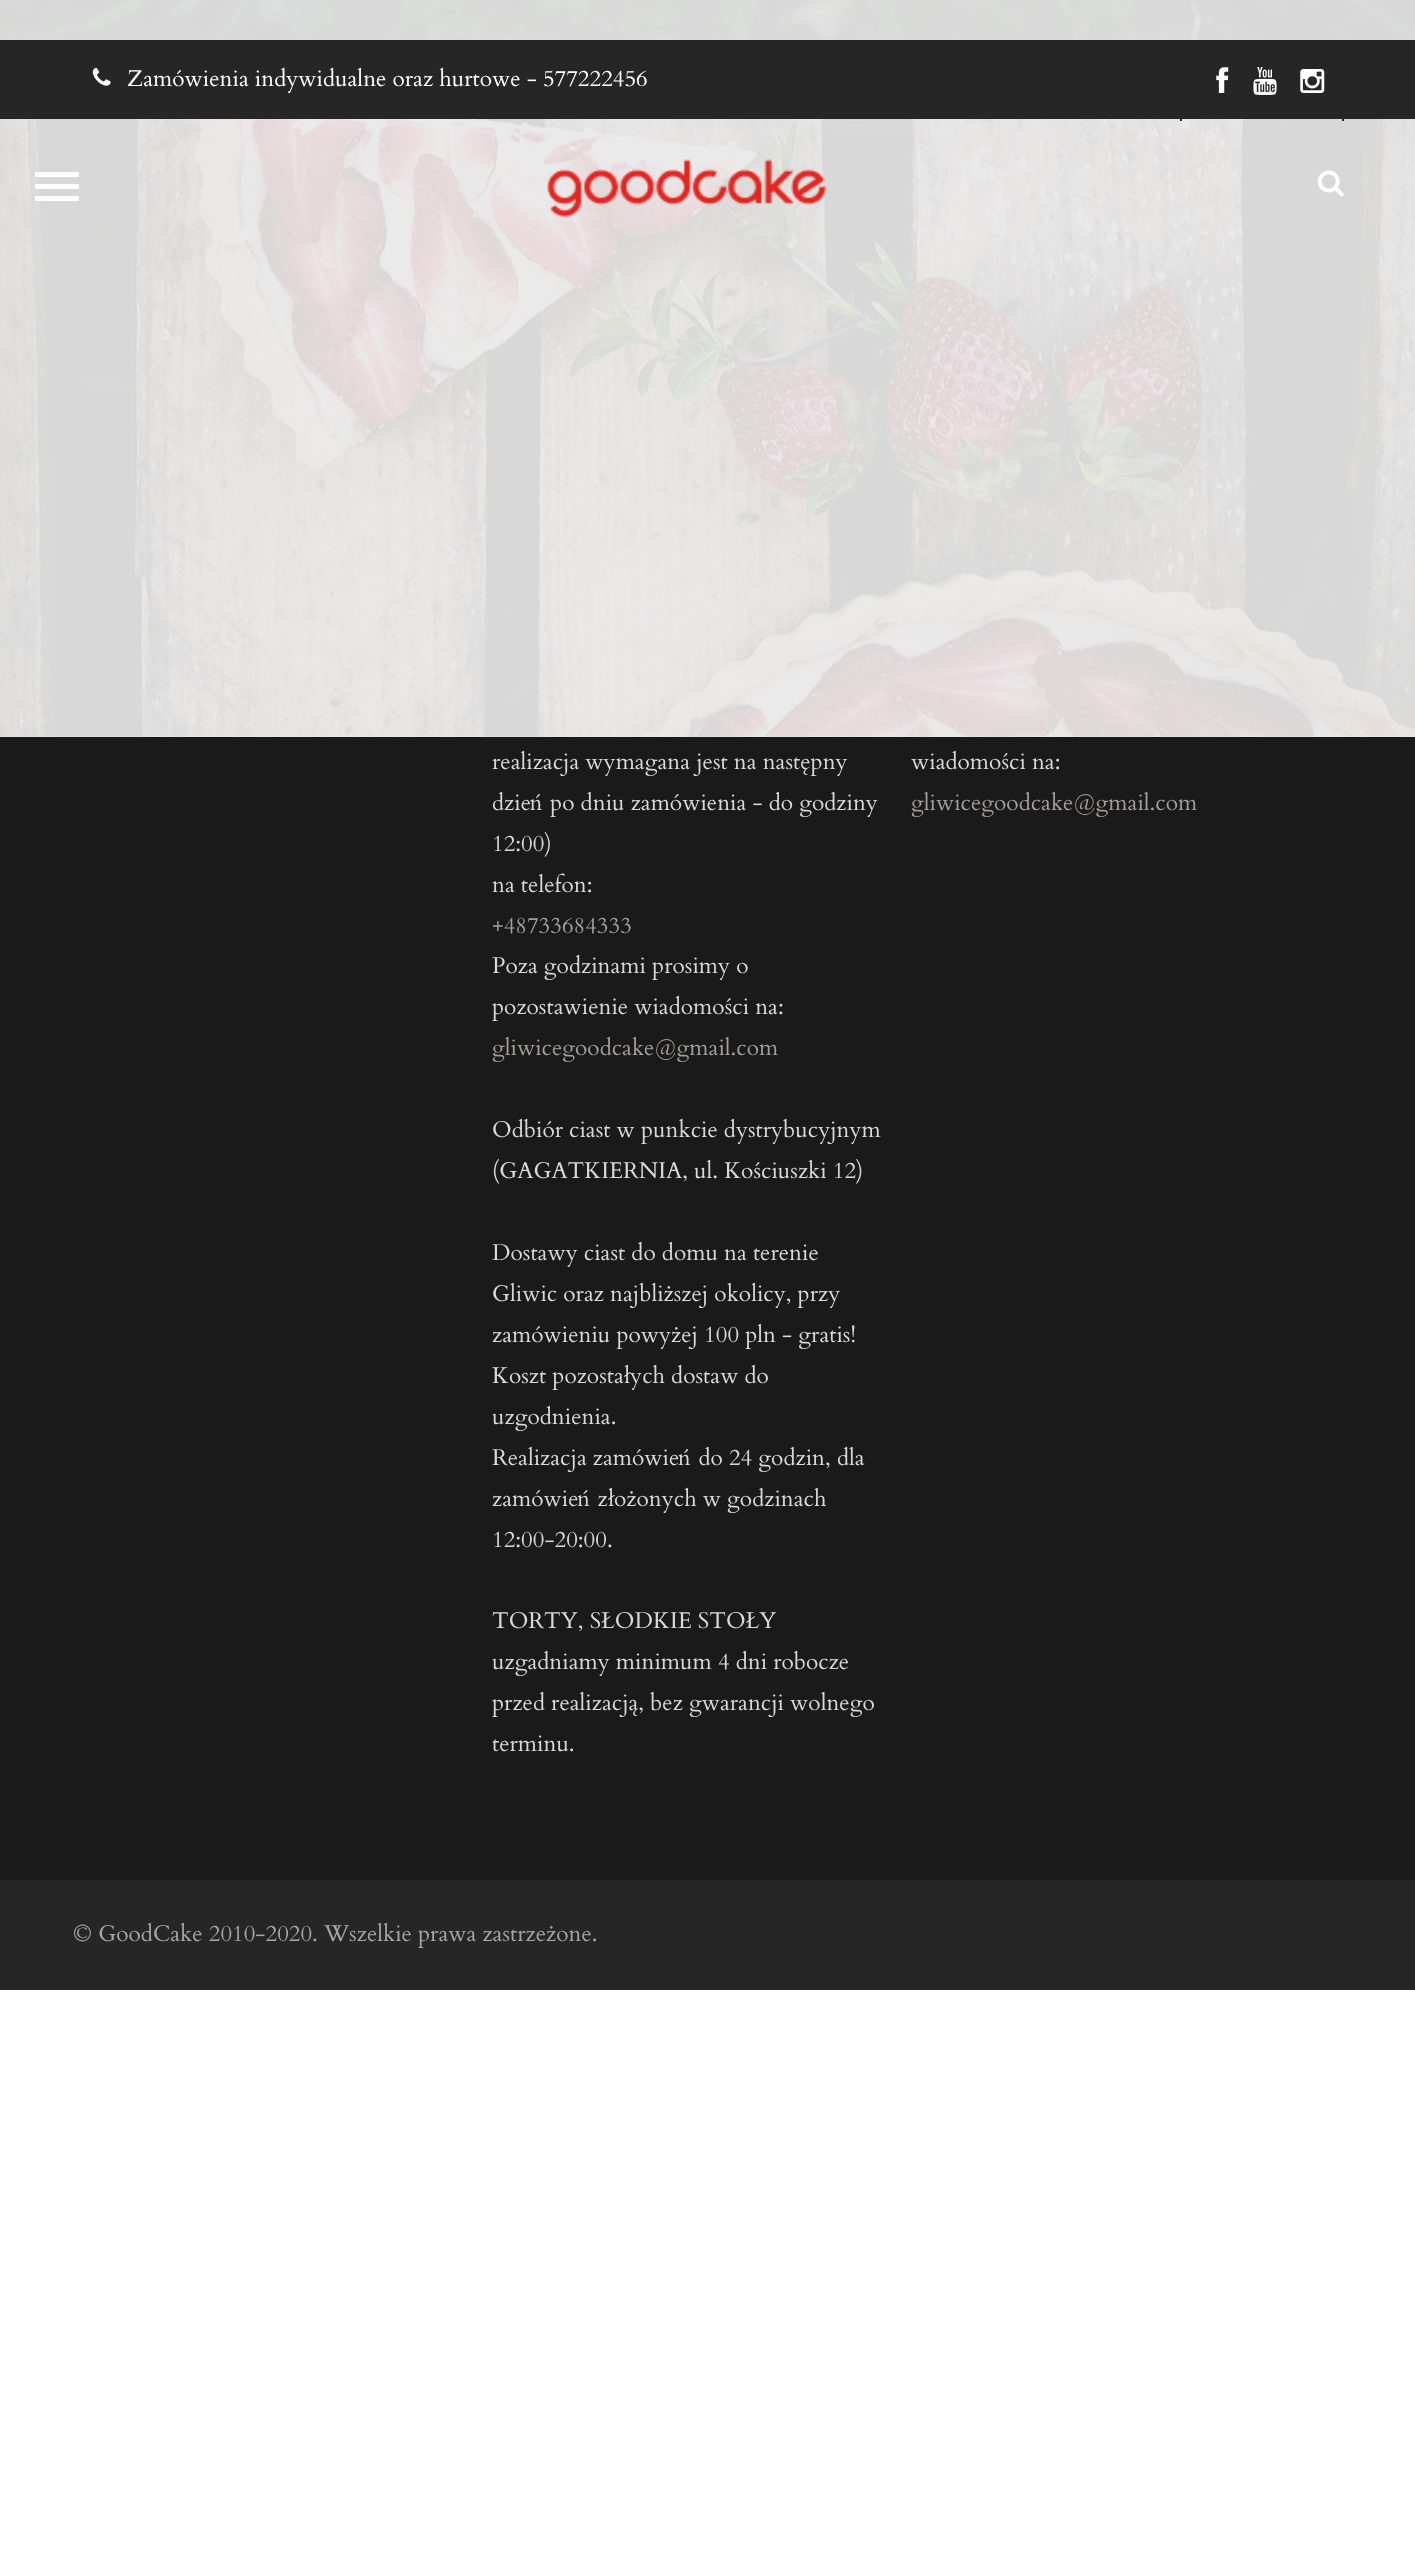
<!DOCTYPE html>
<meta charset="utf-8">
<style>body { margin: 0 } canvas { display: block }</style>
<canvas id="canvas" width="1415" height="2559"></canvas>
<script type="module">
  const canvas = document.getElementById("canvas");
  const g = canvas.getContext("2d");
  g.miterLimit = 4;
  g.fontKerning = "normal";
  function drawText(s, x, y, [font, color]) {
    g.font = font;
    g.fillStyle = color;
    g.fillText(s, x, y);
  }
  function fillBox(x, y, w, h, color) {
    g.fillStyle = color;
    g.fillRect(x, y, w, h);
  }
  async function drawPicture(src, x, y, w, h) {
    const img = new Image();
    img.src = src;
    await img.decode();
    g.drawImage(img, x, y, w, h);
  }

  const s1 = ["22.75px Cardo", "#FFFFFF"];
  const s2 = ["22.75px Cardo", "#D9D9D9"];
  const s3 = ["22.75px Cardo", "#A39E9B"];
  const s4 = ["22.75px Cardo", "#A6A6A6"];

  fillBox(0, 0, 1415, 2559, "#FFFFFF");
  fillBox(0, 0, 1415, 737, "#E9E9E9");
  await drawPicture("pic1.png", 0, 0, 1415, 737);
  fillBox(0, 40, 1415, 79, "#262626");
  await drawPicture("pic2.png", 92, 67, 19, 19);
  drawText("Zamówienia indywidualne oraz hurtowe - 577222456", 127, 86, s1);
  fillBox(1342, 119, 2, 2, "#262626");
  fillBox(1180, 119, 2, 2, "#262626");
  await drawPicture("pic3.png", 1216, 67, 13, 26);
  await drawPicture("pic4.png", 1253, 67, 24, 28);
  await drawPicture("pic5.png", 1300, 69, 25, 24);
  fillBox(35, 172, 44, 5, "#FFFFFF");
  fillBox(35, 184, 44, 5, "#FFFFFF");
  fillBox(35, 196, 44, 5, "#FFFFFF");
  await drawPicture("pic6.png", 547, 159, 280, 59);
  await drawPicture("pic7.png", 1317, 170, 27, 27);
  fillBox(0, 1880, 1415, 110, "#262626");
  fillBox(0, 737, 1415, 1143, "#1A1A1A");
  drawText("realizacja wymagana jest na następny", 492, 769, s2);
  drawText("dzień po dniu zamówienia - do godziny", 492, 810, s2);
  drawText("12:00)", 492, 851, s2);
  drawText("na telefon:", 492, 892, s2);
  drawText("+48733684333", 492, 933, s3);
  drawText("Poza godzinami prosimy o", 492, 973, s2);
  drawText("pozostawienie wiadomości na:", 492, 1014, s2);
  drawText("gliwicegoodcake@gmail.com", 492, 1055, s3);
  drawText("Odbiór ciast w punkcie dystrybucyjnym", 492, 1137, s2);
  drawText("(GAGATKIERNIA, ul. Kościuszki 12)", 492, 1178, s2);
  drawText("Dostawy ciast do domu na terenie", 492, 1260, s2);
  drawText("Gliwic oraz najbliższej okolicy, przy", 492, 1301, s2);
  drawText("zamówieniu powyżej 100 pln - gratis!", 492, 1342, s2);
  drawText("Koszt pozostałych dostaw do", 492, 1383, s2);
  drawText("uzgodnienia.", 492, 1424, s2);
  drawText("Realizacja zamówień do 24 godzin, dla", 492, 1465, s2);
  drawText("zamówień złożonych w godzinach", 492, 1506, s2);
  drawText("12:00-20:00.", 492, 1547, s2);
  drawText("TORTY, SŁODKIE STOŁY", 492, 1628, s2);
  drawText("uzgadniamy minimum 4 dni robocze", 492, 1669, s2);
  drawText("przed realizacją, bez gwarancji wolnego", 492, 1710, s2);
  drawText("terminu.", 492, 1751, s2);
  drawText("wiadomości na:", 911, 769, s2);
  drawText("gliwicegoodcake@gmail.com", 911, 810, s3);
  drawText("© GoodCake 2010-2020. Wszelkie prawa zastrzeżone.", 73, 1941, s4);
</script>
